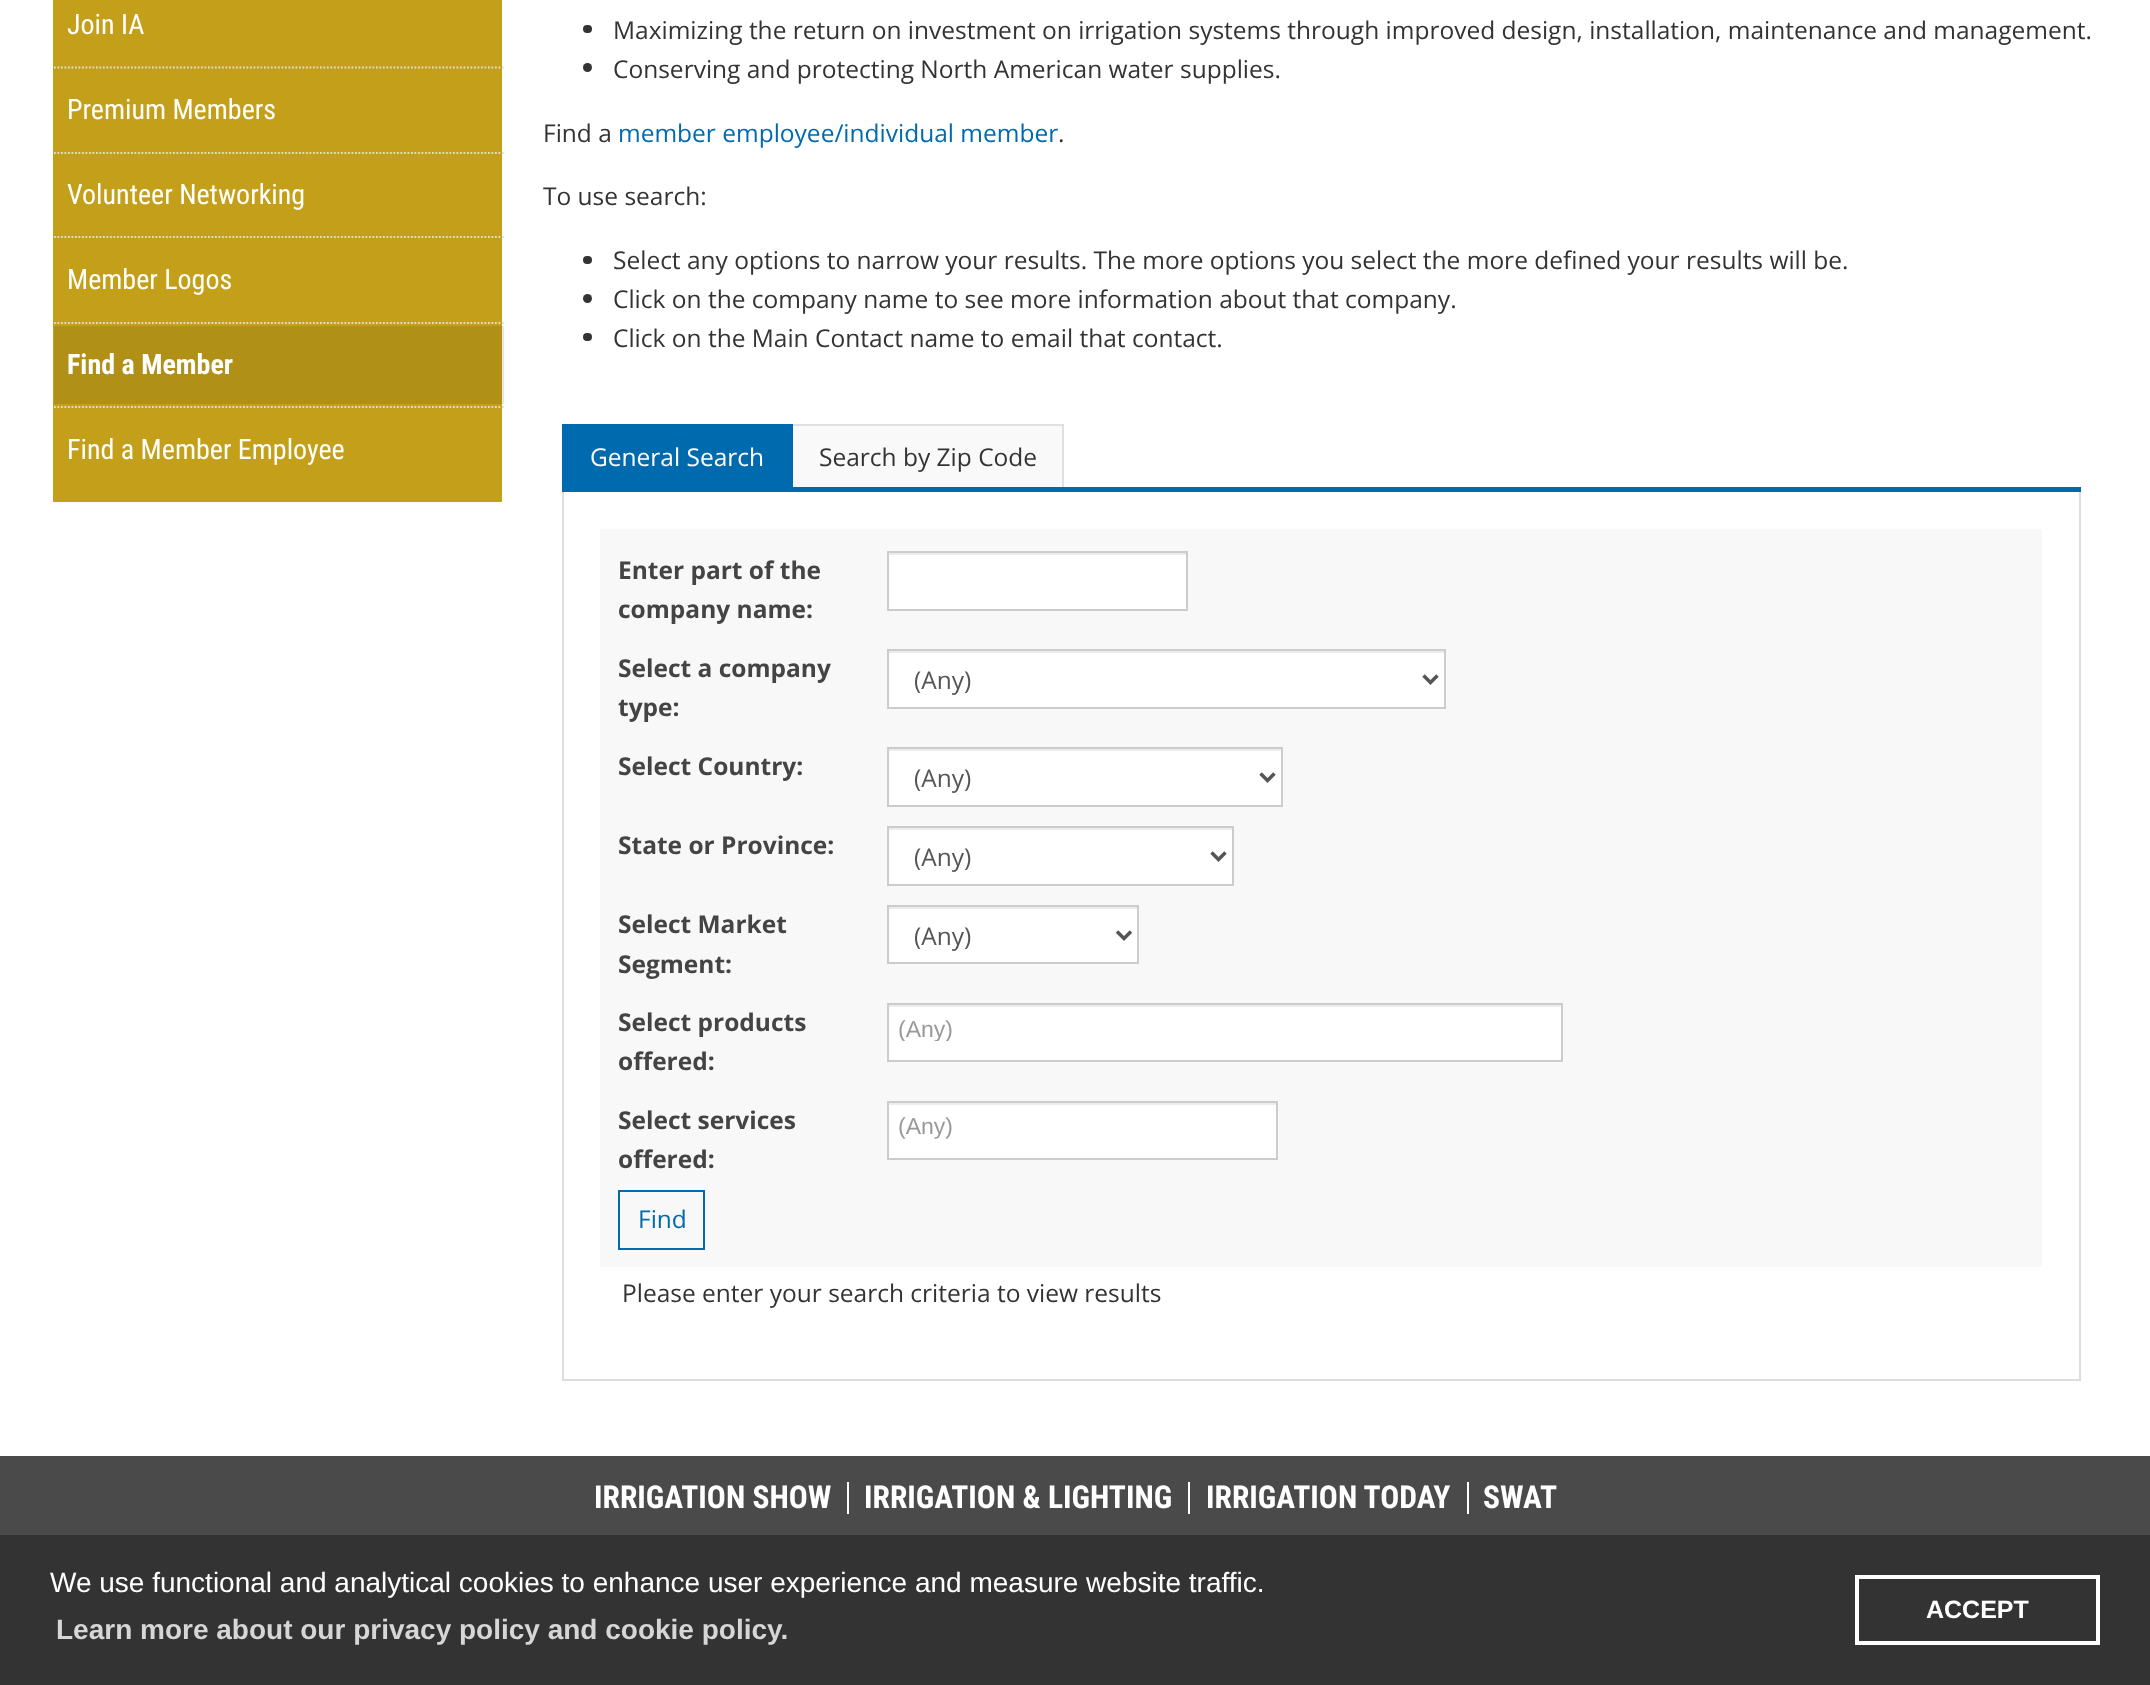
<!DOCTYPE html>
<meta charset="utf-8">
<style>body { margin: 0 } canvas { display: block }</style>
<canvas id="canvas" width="2150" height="1685"></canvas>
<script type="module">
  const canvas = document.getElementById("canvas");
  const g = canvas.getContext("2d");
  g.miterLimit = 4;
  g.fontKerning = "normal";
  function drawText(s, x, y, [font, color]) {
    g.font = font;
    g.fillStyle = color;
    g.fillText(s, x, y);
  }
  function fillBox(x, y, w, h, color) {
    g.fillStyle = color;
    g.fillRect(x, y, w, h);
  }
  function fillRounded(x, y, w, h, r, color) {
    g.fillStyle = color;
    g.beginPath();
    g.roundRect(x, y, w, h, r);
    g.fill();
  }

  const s1 = ["28px Roboto Condensed", "#FFFFFF"];
  const s2 = ["bold 28px Roboto Condensed", "#FFFFFF"];
  const s3 = ["24.5px Open Sans", "#333333"];
  const s4 = ["24.5px Open Sans", "#006AAF"];
  const s5 = ["24.5px Open Sans", "#FFFFFF"];
  const s6 = ["bold 24.5px Open Sans", "#444444"];
  const s7 = ["24.5px Open Sans", "#555555"];
  const s8 = ["23px Liberation Sans", "#999999"];
  const s9 = ["bold 31.5px Roboto Condensed", "#FFFFFF"];
  const s10 = ["28px Liberation Sans", "#FFFFFF"];
  const s11 = ["bold 28px Liberation Sans", "#D6D6D6"];
  const s12 = ["bold 25px Liberation Sans", "#FFFFFF"];

  fillBox(0, 0, 2150, 1685, "#FFFFFF");
  fillBox(502, 326, 2, 78, "#E6E6E6");
  fillBox(53, 0, 449, 502, "#C4A01A");
  fillBox(54, 326, 448, 78, "#B09017");
  drawText("Join IA", 67, 34, s1);
  g.beginPath();
  g.moveTo(54, 67.5);
  g.lineTo(504, 67.5);
  g.strokeStyle = "#DDDDDD";
  g.lineWidth = 1.8;
  g.setLineDash([1.75, 1.75]);
  g.stroke();
  drawText("Premium Members", 67, 119, s1);
  g.beginPath();
  g.moveTo(54, 153);
  g.lineTo(504, 153);
  g.stroke();
  drawText("Volunteer Networking", 67, 204, s1);
  g.beginPath();
  g.moveTo(54, 237);
  g.lineTo(504, 237);
  g.stroke();
  drawText("Member Logos", 67, 289, s1);
  g.beginPath();
  g.moveTo(54, 323);
  g.lineTo(504, 323);
  g.stroke();
  drawText("Find a Member", 67, 374, s2);
  g.beginPath();
  g.moveTo(54, 407);
  g.lineTo(504, 407);
  g.stroke();
  drawText("Find a Member Employee", 67, 459, s1);
  fillRounded(583, 25, 9, 8, 4, "#333333");
  drawText("Maximizing the return on investment on irrigation systems through improved design, installation, maintenance and management.", 613, 39, s3);
  g.beginPath();
  g.arc(587.5, 67.5, 4.5, 0, Math.PI * 2);
  g.fill();
  drawText("Conserving and protecting North American water supplies.", 613, 78, s3);
  drawText("Find a", 543, 142, s3);
  drawText("member employee/individual member", 618, 142, s4);
  drawText(".", 1058, 142, s3);
  drawText("To use search:", 543, 205, s3);
  fillRounded(583, 256, 9, 8, 4, "#333333");
  drawText("Select any options to narrow your results. The more options you select the more defined your results will be.", 613, 269, s3);
  g.beginPath();
  g.arc(587.5, 298.5, 4.5, 0, Math.PI * 2);
  g.fill();
  drawText("Click on the company name to see more information about that company.", 613, 308, s3);
  fillRounded(583, 333, 9, 8, 4, "#333333");
  drawText("Click on the Main Contact name to email that contact.", 613, 347, s3);
  fillBox(562, 487, 1519, 5, "#006AAF");
  fillBox(562, 424, 231, 63, "#006AAF");
  drawText("General Search", 590, 466, s5);
  fillBox(793, 426, 269, 61, "#F9F9F9");
  fillBox(793, 424, 271, 2, "#E0E0E0");
  fillBox(1062, 424, 2, 63, "#E0E0E0");
  drawText("Search by Zip Code", 819, 466, s3);
  fillBox(2079, 492, 2, 889, "#DDDDDD");
  fillBox(562, 1379, 1519, 2, "#DDDDDD");
  fillBox(562, 492, 2, 889, "#DDDDDD");
  fillBox(600, 529, 1442, 738, "#F8F8F8");
  drawText("Enter part of the", 618, 579, s6);
  drawText("company name:", 618, 618, s6);
  fillBox(889, 555, 297, 54, "#FFFFFF");
  fillBox(889, 553, 298, 2, "#ECECEC");
  g.strokeStyle = "#CCCCCC";
  g.lineWidth = 2;
  g.setLineDash([]);
  g.strokeRect(888, 552, 299, 58);
  drawText("Select a company", 618, 677, s6);
  drawText("type:", 618, 716, s6);
  fillBox(889, 653, 555, 54, "#FFFFFF");
  fillBox(889, 651, 555, 2, "#ECECEC");
  g.strokeRect(888, 650, 557, 58);
  g.beginPath();
  g.moveTo(1423.5, 675.5);
  g.lineTo(1430.5, 682.5);
  g.lineTo(1437.5, 675.5);
  g.strokeStyle = "#555555";
  g.lineWidth = 3.5;
  g.stroke();
  drawText("(Any)", 914, 689, s7);
  drawText("Select Country:", 618, 775, s6);
  fillBox(889, 751, 392, 54, "#FFFFFF");
  fillBox(889, 749, 392, 2, "#ECECEC");
  g.strokeStyle = "#CCCCCC";
  g.lineWidth = 2;
  g.strokeRect(888, 748, 394, 58);
  g.beginPath();
  g.moveTo(1260.5, 773.5);
  g.lineTo(1267.5, 780.5);
  g.lineTo(1274.5, 773.5);
  g.strokeStyle = "#555555";
  g.lineWidth = 3.5;
  g.stroke();
  drawText("(Any)", 914, 787, s7);
  drawText("State or Province:", 618, 854, s6);
  fillBox(889, 830, 343, 54, "#FFFFFF");
  fillBox(889, 828, 343, 2, "#ECECEC");
  g.strokeStyle = "#CCCCCC";
  g.lineWidth = 2;
  g.strokeRect(888, 827, 345, 58);
  g.beginPath();
  g.moveTo(1211.5, 852.5);
  g.lineTo(1218.5, 859.5);
  g.lineTo(1225.5, 852.5);
  g.strokeStyle = "#555555";
  g.lineWidth = 3.5;
  g.stroke();
  drawText("(Any)", 914, 866, s7);
  drawText("Select Market", 618, 933, s6);
  drawText("Segment:", 618, 973, s6);
  fillBox(889, 909, 248, 53, "#FFFFFF");
  fillBox(889, 907, 249, 2, "#ECECEC");
  g.strokeStyle = "#CCCCCC";
  g.lineWidth = 2;
  g.strokeRect(888, 906, 250, 57);
  g.beginPath();
  g.moveTo(1117, 931.5);
  g.lineTo(1124, 938.5);
  g.lineTo(1131, 931.5);
  g.strokeStyle = "#555555";
  g.lineWidth = 3.5;
  g.stroke();
  drawText("(Any)", 914, 945, s7);
  drawText("Select products", 618, 1031, s6);
  drawText("offered:", 618, 1070, s6);
  fillBox(889, 1007, 672, 53, "#FFFFFF");
  fillBox(889, 1005, 672, 2, "#ECECEC");
  g.strokeStyle = "#CCCCCC";
  g.lineWidth = 2;
  g.strokeRect(888, 1004, 674, 57);
  g.save();
  g.beginPath();
  g.rect(898, 1015, 98, 26);
  g.clip();
  drawText("(Any)", 898, 1037, s8);
  g.restore();
  drawText("Select services", 618, 1129, s6);
  drawText("offered:", 618, 1168, s6);
  fillBox(889, 1105, 387, 53, "#FFFFFF");
  fillBox(889, 1103, 387, 2, "#ECECEC");
  g.strokeRect(888, 1102, 389, 57);
  drawText("(Any)", 898, 1134, s8);
  g.strokeStyle = "#006AAF";
  g.strokeRect(619, 1191, 85, 58);
  drawText("Find", 638, 1228, s4);
  drawText("Please enter your search criteria to view results", 622, 1302, s3);
  fillBox(0, 1456, 2150, 79, "#4A4A4A");
  fillBox(847, 1482, 2, 32, "#FFFFFF");
  drawText("IRRIGATION SHOW", 594, 1508, s9);
  fillBox(1188, 1482, 2, 32, "#FFFFFF");
  drawText("IRRIGATION & LIGHTING", 864, 1508, s9);
  fillBox(1467, 1482, 2, 32, "#FFFFFF");
  drawText("IRRIGATION TODAY", 1206, 1508, s9);
  drawText("SWAT", 1483, 1508, s9);
  fillBox(0, 1535, 2150, 150, "#333333");
  drawText("We use functional and analytical cookies to enhance user experience and measure website traffic.", 50, 1592, s10);
  drawText("Learn more about our privacy policy and cookie policy.", 56, 1639, s11);
  g.strokeStyle = "#FFFFFF";
  g.lineWidth = 4;
  g.strokeRect(1857, 1577, 241, 66);
  drawText("ACCEPT", 1926, 1618, s12);
</script>
